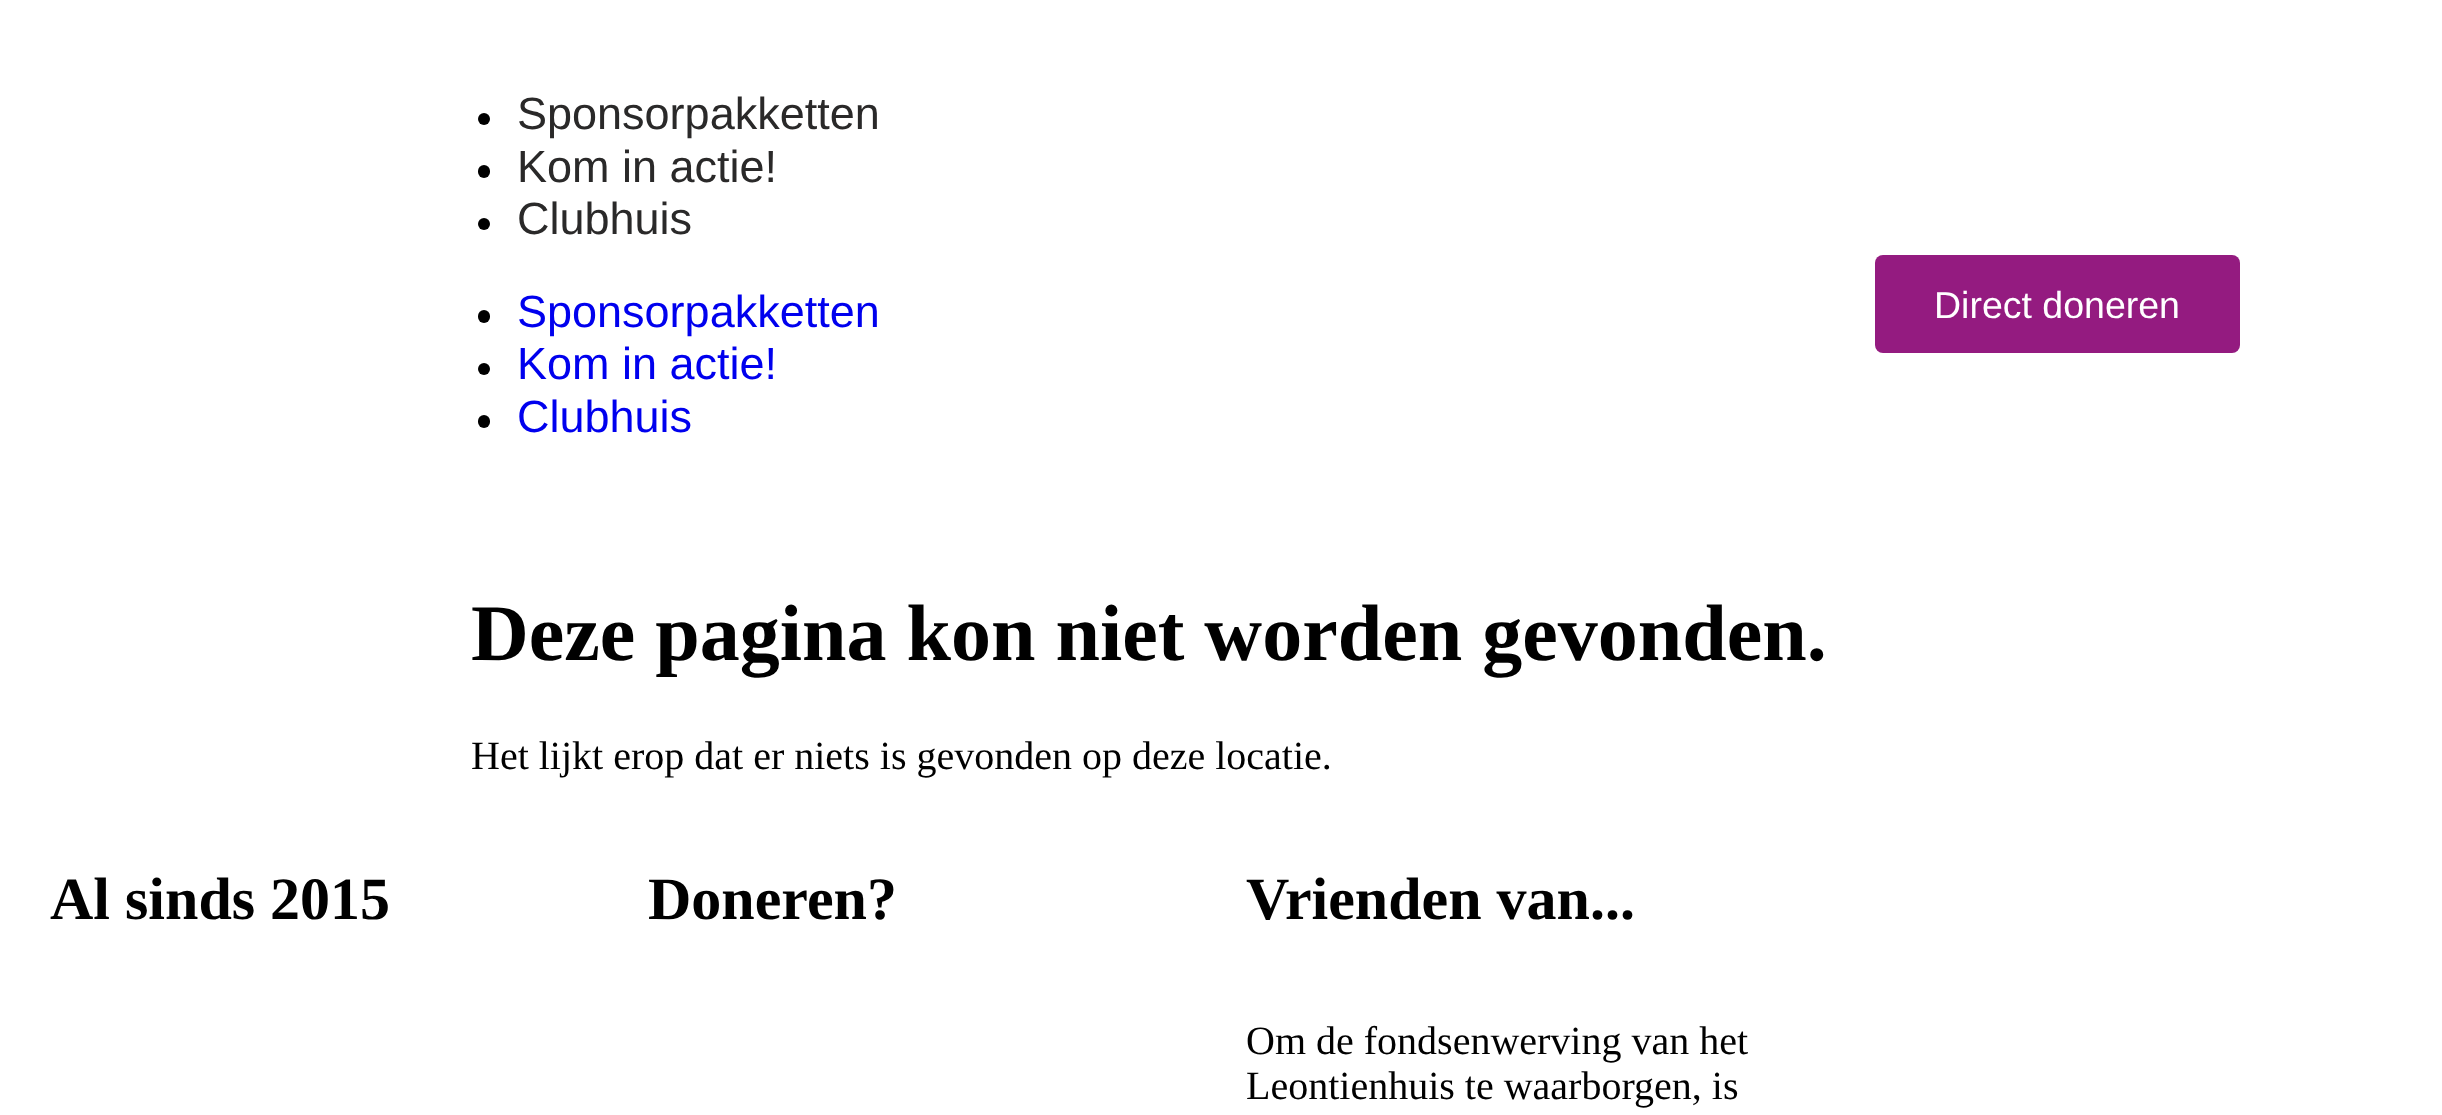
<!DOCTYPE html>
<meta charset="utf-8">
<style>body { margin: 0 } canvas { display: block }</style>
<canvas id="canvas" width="2442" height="1115"></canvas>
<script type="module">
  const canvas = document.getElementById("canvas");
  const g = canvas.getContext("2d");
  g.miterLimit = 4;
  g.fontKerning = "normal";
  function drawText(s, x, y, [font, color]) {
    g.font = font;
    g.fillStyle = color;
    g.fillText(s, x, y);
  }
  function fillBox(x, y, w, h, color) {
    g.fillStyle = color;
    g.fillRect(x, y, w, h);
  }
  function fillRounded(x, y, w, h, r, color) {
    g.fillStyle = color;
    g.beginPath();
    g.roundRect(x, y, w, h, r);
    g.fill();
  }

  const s1 = ["45px Liberation Sans", "#2A2929"];
  const s2 = ["45px Liberation Sans", "#0000EE"];
  const s3 = ["37.5px Liberation Sans", "#FFFFFF"];
  const s4 = ["bold 80px Liberation Serif", "#000000"];
  const s5 = ["40px Liberation Serif", "#000000"];
  const s6 = ["bold 60px Liberation Serif", "#000000"];

  fillBox(0, 0, 2442, 1115, "#FFFFFF");
  g.fillStyle = "#000000";
  g.beginPath();
  g.arc(484, 119, 6, 0, Math.PI * 2);
  g.fill();
  drawText("Sponsorpakketten", 517, 129, s1);
  fillRounded(478, 165, 12, 13, 6, "#000000");
  drawText("Kom in actie!", 517, 182, s1);
  g.fillStyle = "#000000";
  g.beginPath();
  g.arc(484, 224, 6, 0, Math.PI * 2);
  g.fill();
  drawText("Clubhuis", 517, 234, s1);
  fillRounded(478, 310, 12, 13, 6, "#000000");
  drawText("Sponsorpakketten", 517, 327, s2);
  g.fillStyle = "#000000";
  g.beginPath();
  g.arc(484, 369, 6, 0, Math.PI * 2);
  g.fill();
  drawText("Kom in actie!", 517, 379, s2);
  fillRounded(478, 415, 12, 13, 6, "#000000");
  drawText("Clubhuis", 517, 432, s2);
  fillRounded(1875, 255, 365, 98, 8, "#941B80");
  drawText("Direct doneren", 1934, 318, s3);
  drawText("Deze pagina kon niet worden gevonden.", 471, 660, s4);
  drawText("Het lijkt erop dat er niets is gevonden op deze locatie.", 471, 769, s5);
  drawText("Al sinds 2015", 50, 919, s6);
  drawText("Doneren?", 648, 919, s6);
  drawText("Vrienden van...", 1246, 919, s6);
  drawText("Om de fondsenwerving van het", 1246, 1054, s5);
  drawText("Leontienhuis te waarborgen, is", 1246, 1099, s5);
</script>
